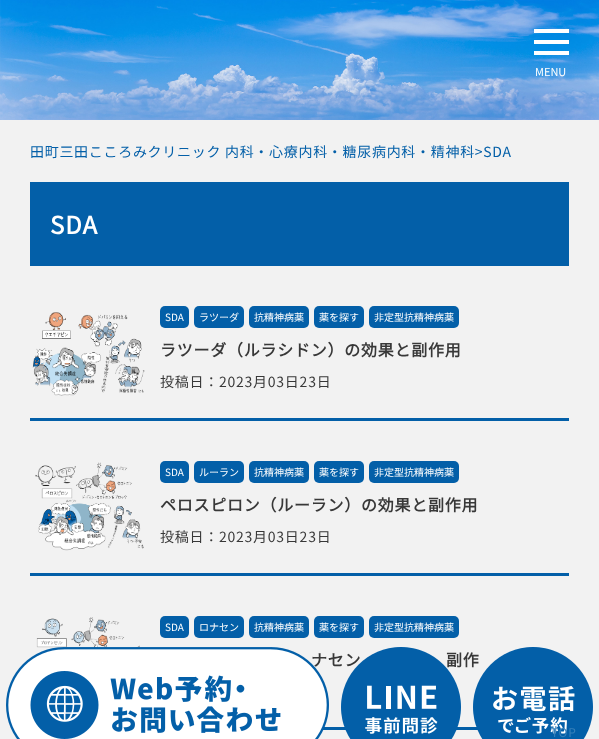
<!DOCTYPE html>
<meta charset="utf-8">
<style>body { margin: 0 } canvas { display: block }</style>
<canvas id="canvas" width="599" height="739"></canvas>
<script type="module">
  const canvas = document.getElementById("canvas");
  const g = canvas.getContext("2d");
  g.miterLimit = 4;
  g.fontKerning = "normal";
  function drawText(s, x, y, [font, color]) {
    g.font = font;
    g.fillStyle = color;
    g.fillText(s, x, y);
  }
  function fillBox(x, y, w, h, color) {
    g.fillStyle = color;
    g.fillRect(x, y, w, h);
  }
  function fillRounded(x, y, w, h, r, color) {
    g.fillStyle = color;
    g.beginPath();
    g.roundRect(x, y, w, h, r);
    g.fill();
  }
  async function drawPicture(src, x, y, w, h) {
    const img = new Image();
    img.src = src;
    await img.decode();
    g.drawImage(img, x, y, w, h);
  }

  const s1 = ["100 11px Noto Sans JP", "#FFFFFF"];
  const s2 = ["100 14px Noto Sans JP", "#035FA8"];
  const s3 = ["bold 24px Noto Sans JP", "#FFFFFF"];
  const s4 = ["100 10px Noto Sans JP", "#FFFFFF"];
  const s5 = ["bold 16px Noto Sans JP", "#383838"];
  const s6 = ["100 14px Noto Sans JP", "#383838"];
  const s7 = ["100 12px Noto Sans JP", "#3780BA"];

  fillBox(0, 0, 599, 739, "#F2F2F2");
  await drawPicture("pic1.png", 0, 0, 599, 120);
  fillBox(534, 29, 35, 4, "#FFFFFF");
  fillBox(534, 40, 35, 4, "#FFFFFF");
  fillBox(534, 51, 35, 4, "#FFFFFF");
  drawText("MENU", 535, 76, s1);
  g.letterSpacing = "0.7px";
  drawText("田町三田こころみクリニック 内科・心療内科・糖尿病内科・精神科>SDA", 30, 157, s2);
  fillBox(30, 182, 539, 84, "#035FA8");
  g.letterSpacing = "1px";
  drawText("SDA", 50, 234, s3);
  fillBox(30, 418, 539, 3, "#035FA8");
  await drawPicture("pic2.png", 32, 312, 113, 84);
  fillRounded(160, 306, 29, 22, 5, "#035FA8");
  g.letterSpacing = "0px";
  drawText("SDA", 165, 321, s4);
  fillRounded(194, 306, 50, 22, 5, "#035FA8");
  drawText("ラツーダ", 199, 321, s4);
  fillRounded(249, 306, 60, 22, 5, "#035FA8");
  drawText("抗精神病薬", 254, 321, s4);
  fillRounded(314, 306, 50, 22, 5, "#035FA8");
  drawText("薬を探す", 319, 321, s4);
  fillRounded(369, 306, 90, 22, 5, "#035FA8");
  drawText("非定型抗精神病薬", 374, 321, s4);
  g.letterSpacing = "0.75px";
  drawText("ラツーダ（ルラシドン）の効果と副作用", 160, 356, s5);
  drawText("投稿日：2023月03日23日", 160, 387, s6);
  fillBox(30, 573, 539, 3, "#035FA8");
  await drawPicture("pic3.png", 35, 462, 109, 89);
  fillRounded(160, 461, 29, 22, 5, "#035FA8");
  g.letterSpacing = "0px";
  drawText("SDA", 165, 476, s4);
  fillRounded(194, 461, 50, 22, 5, "#035FA8");
  drawText("ルーラン", 199, 476, s4);
  fillRounded(249, 461, 60, 22, 5, "#035FA8");
  drawText("抗精神病薬", 254, 476, s4);
  fillRounded(314, 461, 50, 22, 5, "#035FA8");
  drawText("薬を探す", 319, 476, s4);
  fillRounded(369, 461, 90, 22, 5, "#035FA8");
  drawText("非定型抗精神病薬", 374, 476, s4);
  g.letterSpacing = "0.75px";
  drawText("ペロスピロン（ルーラン）の効果と副作用", 160, 511, s5);
  drawText("投稿日：2023月03日23日", 160, 542, s6);
  fillBox(323, 727, 155, 3, "#035FA8");
  await drawPicture("pic4.png", 36, 617, 104, 31);
  fillRounded(160, 616, 29, 22, 5, "#035FA8");
  g.letterSpacing = "0px";
  drawText("SDA", 165, 631, s4);
  fillRounded(194, 616, 50, 22, 5, "#035FA8");
  drawText("ロナセン", 199, 631, s4);
  fillRounded(249, 616, 60, 22, 5, "#035FA8");
  drawText("抗精神病薬", 254, 631, s4);
  fillRounded(314, 616, 50, 22, 5, "#035FA8");
  drawText("薬を探す", 319, 631, s4);
  fillRounded(369, 616, 90, 22, 5, "#035FA8");
  drawText("非定型抗精神病薬", 374, 631, s4);
  g.letterSpacing = "0.75px";
  drawText("ナセン", 311, 666, s5);
  drawText("副作", 446, 666, s5);
  await drawPicture("pic5.png", 6, 647, 323, 92);
  await drawPicture("pic6.png", 341, 647, 120, 92);
  await drawPicture("pic7.png", 473, 647, 120, 92);
  drawText("TOP", 551, 737, s7);
</script>
